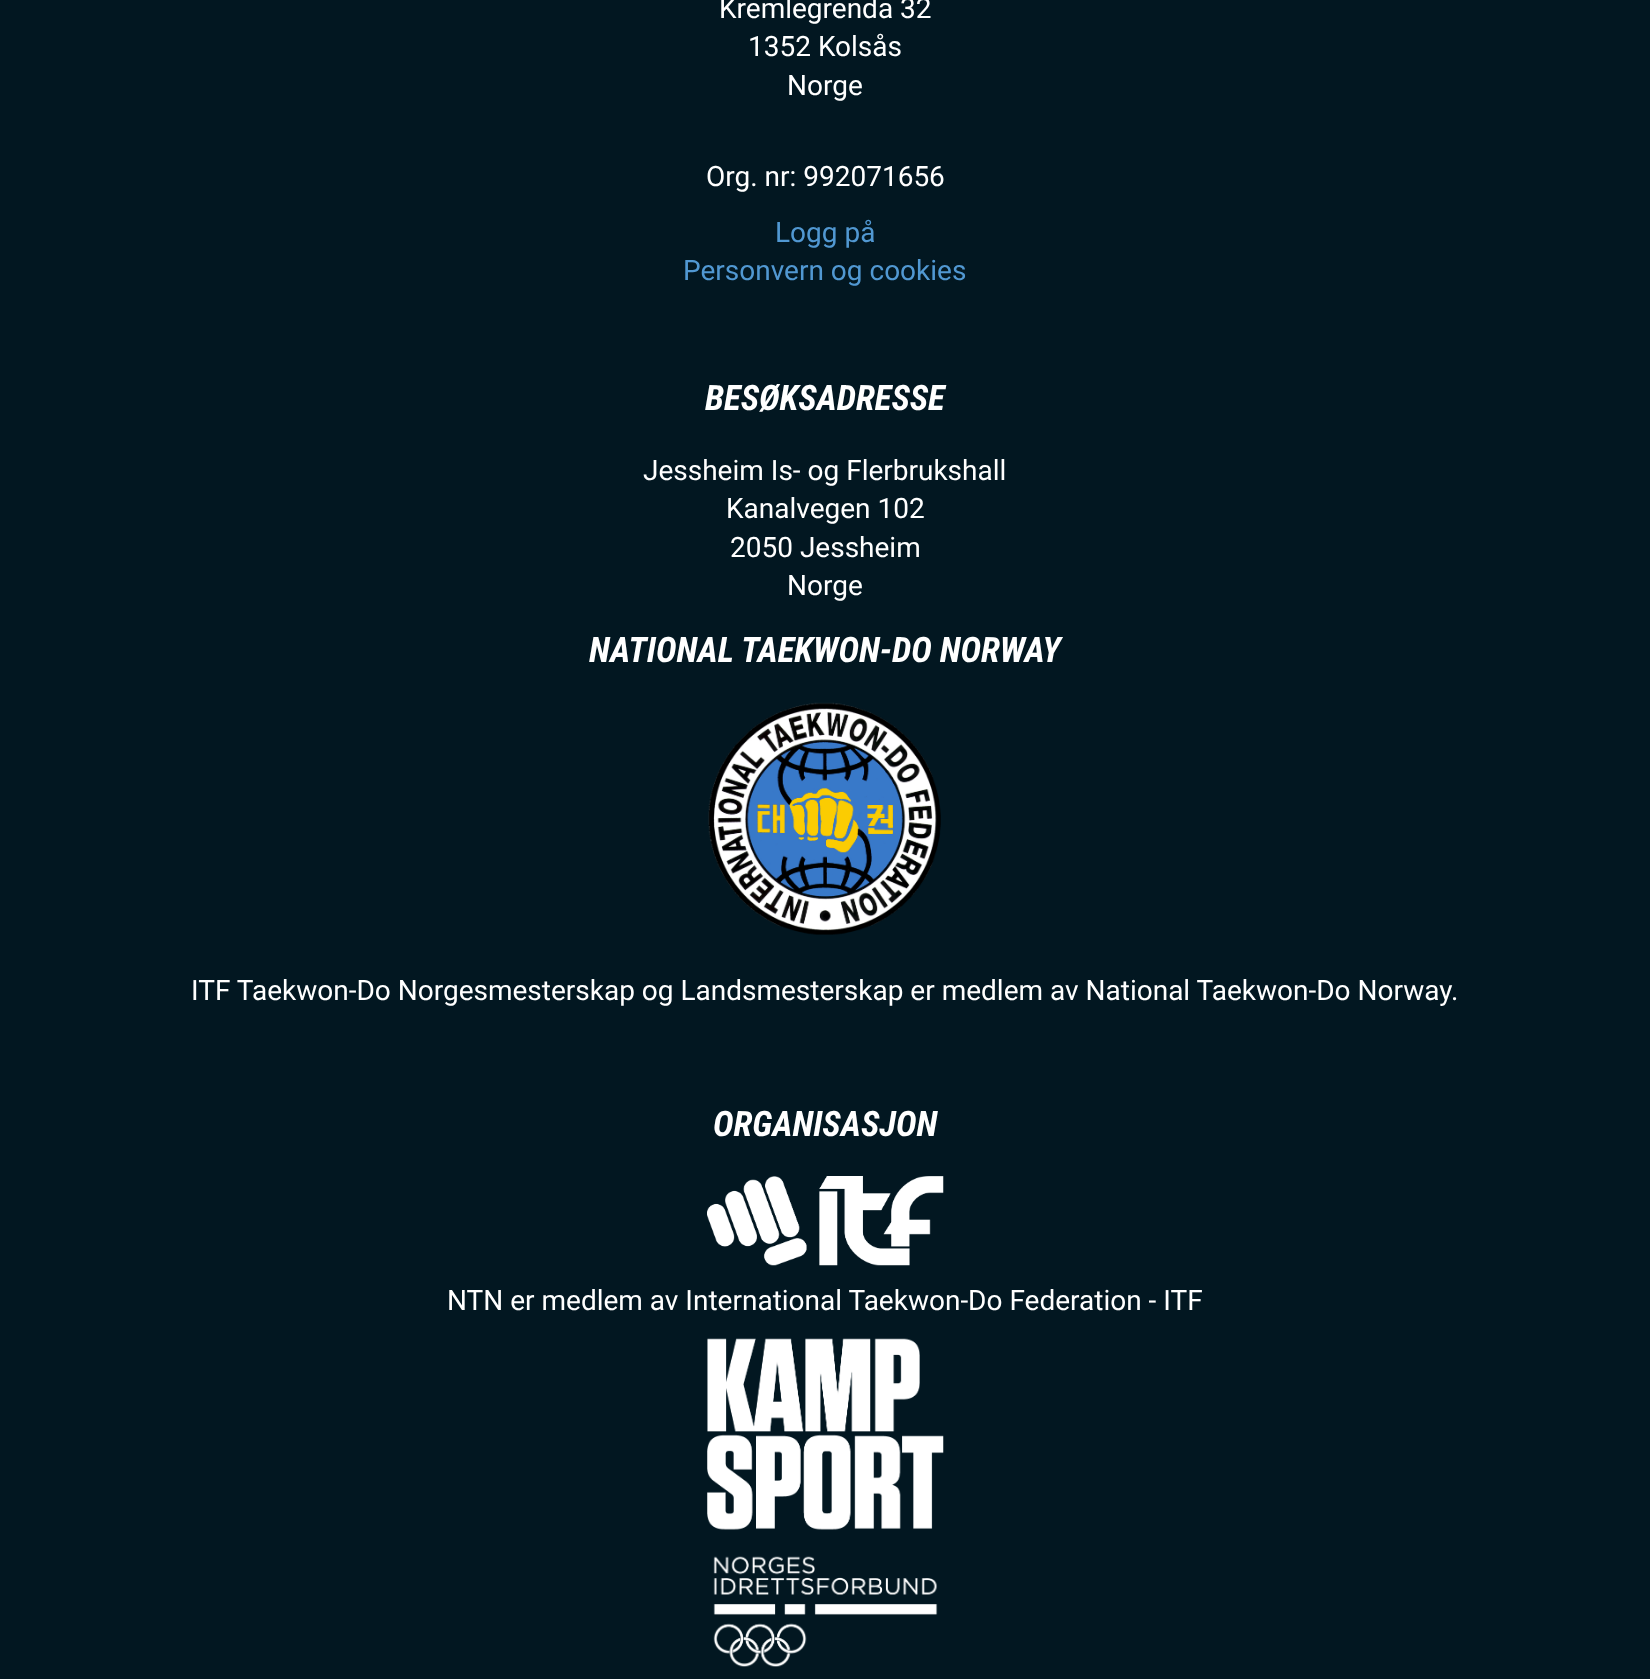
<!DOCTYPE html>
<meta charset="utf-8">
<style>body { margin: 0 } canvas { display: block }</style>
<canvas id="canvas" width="1650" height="1679"></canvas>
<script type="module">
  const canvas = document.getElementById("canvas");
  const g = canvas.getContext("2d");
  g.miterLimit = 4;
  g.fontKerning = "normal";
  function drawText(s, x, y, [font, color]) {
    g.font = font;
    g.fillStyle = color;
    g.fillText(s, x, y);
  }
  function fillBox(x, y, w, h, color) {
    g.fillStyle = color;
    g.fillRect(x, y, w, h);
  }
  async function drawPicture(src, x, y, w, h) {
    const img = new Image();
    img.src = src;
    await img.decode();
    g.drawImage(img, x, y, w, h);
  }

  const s1 = ["28px Roboto", "#FFFFFF"];
  const s2 = ["28px Roboto", "#5198D2"];
  const s3 = ["italic bold 35px Roboto Condensed", "#FFFFFF"];

  fillBox(0, 0, 1650, 1679, "#021721");
  drawText("Kremlegrenda 32", 719, 18, s1);
  drawText("1352 Kolsås", 748, 56, s1);
  drawText("Norge", 787, 95, s1);
  drawText("Org. nr: 992071656", 706, 186, s1);
  drawText("Logg på", 775, 242, s2);
  drawText("Personvern og cookies", 683, 280, s2);
  drawText("BESØKSADRESSE", 705, 410, s3);
  drawText("Jessheim Is- og Flerbrukshall", 643, 480, s1);
  drawText("Kanalvegen 102", 726, 518, s1);
  drawText("2050 Jessheim", 730, 557, s1);
  drawText("Norge", 787, 595, s1);
  drawText("NATIONAL TAEKWON-DO NORWAY", 589, 662, s3);
  await drawPicture("pic1.png", 708, 702, 233, 233);
  drawText("ITF Taekwon-Do Norgesmesterskap og Landsmesterskap er medlem av National Taekwon-Do Norway.", 191, 1000, s1);
  drawText("ORGANISASJON", 713, 1136, s3);
  await drawPicture("pic2.png", 707, 1176, 237, 90);
  drawText("NTN er medlem av International Taekwon-Do Federation - ITF", 447, 1310, s1);
  await drawPicture("pic3.png", 707, 1338, 237, 192);
  await drawPicture("pic4.png", 713, 1556, 225, 111);
</script>
